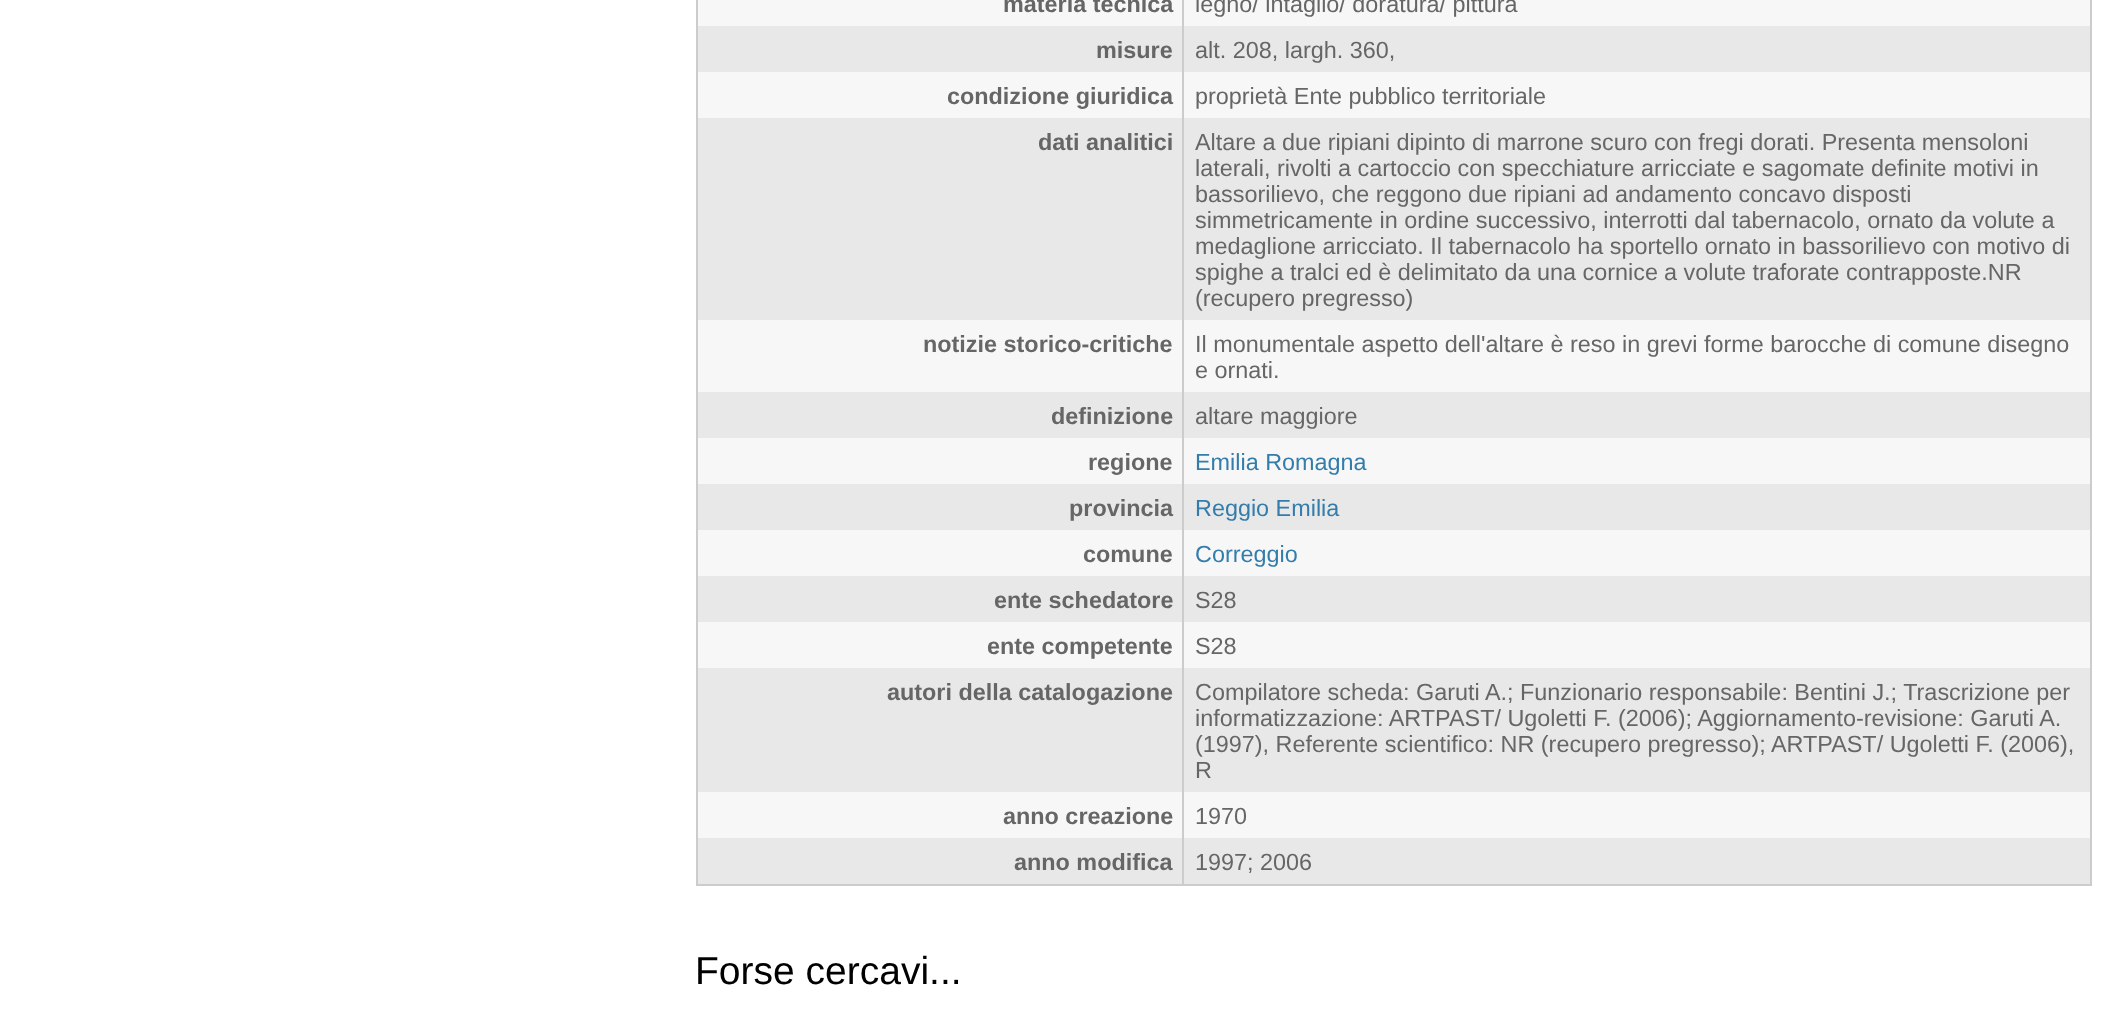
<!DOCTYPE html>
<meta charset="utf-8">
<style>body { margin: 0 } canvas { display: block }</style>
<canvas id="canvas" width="2125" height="1020"></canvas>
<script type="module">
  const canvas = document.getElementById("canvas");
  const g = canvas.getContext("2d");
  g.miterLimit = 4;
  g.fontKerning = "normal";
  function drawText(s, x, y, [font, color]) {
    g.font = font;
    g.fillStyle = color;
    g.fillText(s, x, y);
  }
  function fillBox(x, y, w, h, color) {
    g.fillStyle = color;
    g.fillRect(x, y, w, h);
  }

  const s1 = ["bold 23.4px Liberation Sans", "#666666"];
  const s2 = ["23.4px Liberation Sans", "#666666"];
  const s3 = ["23.4px Liberation Sans", "#337DAC"];
  const s4 = ["39px Liberation Sans", "#000000"];

  fillBox(0, 0, 2125, 1020, "#FFFFFF");
  fillBox(2090, 0, 2, 886, "#CCCCCC");
  fillBox(696, 884, 1396, 2, "#CCCCCC");
  fillBox(696, 0, 2, 886, "#CCCCCC");
  fillBox(698, 0, 1392, 26, "#F7F7F7");
  drawText("materia tecnica", 1003, 12, s1);
  drawText("legno/ intaglio/ doratura/ pittura", 1195, 12, s2);
  fillBox(698, 26, 1392, 46, "#E8E8E8");
  drawText("misure", 1096, 58, s1);
  drawText("alt. 208, largh. 360,", 1195, 58, s2);
  fillBox(698, 72, 1392, 46, "#F7F7F7");
  drawText("condizione giuridica", 947, 104, s1);
  drawText("proprietà Ente pubblico territoriale", 1195, 104, s2);
  fillBox(698, 118, 1392, 202, "#E8E8E8");
  drawText("dati analitici", 1038, 150, s1);
  drawText("Altare a due ripiani dipinto di marrone scuro con fregi dorati. Presenta mensoloni", 1195, 150, s2);
  drawText("laterali, rivolti a cartoccio con specchiature arricciate e sagomate definite motivi in", 1195, 176, s2);
  drawText("bassorilievo, che reggono due ripiani ad andamento concavo disposti", 1195, 202, s2);
  drawText("simmetricamente in ordine successivo, interrotti dal tabernacolo, ornato da volute a", 1195, 228, s2);
  drawText("medaglione arricciato. Il tabernacolo ha sportello ornato in bassorilievo con motivo di", 1195, 254, s2);
  drawText("spighe a tralci ed è delimitato da una cornice", 1195, 280, s2);
  drawText("a volute traforate contrapposte.NR", 1664, 280, s2);
  drawText("(recupero pregresso)", 1195, 306, s2);
  fillBox(698, 320, 1392, 72, "#F7F7F7");
  drawText("notizie storico-critiche", 923, 352, s1);
  drawText("Il monumentale aspetto dell'altare è reso in grevi forme barocche di comune disegno", 1195, 352, s2);
  drawText("e ornati.", 1195, 378, s2);
  fillBox(698, 392, 1392, 46, "#E8E8E8");
  drawText("definizione", 1051, 424, s1);
  drawText("altare maggiore", 1195, 424, s2);
  fillBox(698, 438, 1392, 46, "#F7F7F7");
  drawText("regione", 1088, 470, s1);
  drawText("Emilia Romagna", 1195, 470, s3);
  fillBox(698, 484, 1392, 46, "#E8E8E8");
  drawText("provincia", 1069, 516, s1);
  drawText("Reggio Emilia", 1195, 516, s3);
  fillBox(698, 530, 1392, 46, "#F7F7F7");
  drawText("comune", 1083, 562, s1);
  drawText("Correggio", 1195, 562, s3);
  fillBox(698, 576, 1392, 46, "#E8E8E8");
  drawText("ente schedatore", 994, 608, s1);
  drawText("S28", 1195, 608, s2);
  fillBox(698, 622, 1392, 46, "#F7F7F7");
  drawText("ente competente", 987, 654, s1);
  drawText("S28", 1195, 654, s2);
  fillBox(698, 668, 1392, 124, "#E8E8E8");
  drawText("autori della catalogazione", 887, 700, s1);
  drawText("Compilatore scheda: Garuti A.; Funzionario responsabile: Bentini J.; Trascrizione per", 1195, 700, s2);
  drawText("informatizzazione: ARTPAST/ Ugoletti F. (2006); Aggiornamento-revisione: Garuti A.", 1195, 726, s2);
  drawText("(1997), Referente scientifico: NR (recupero pregresso); ARTPAST/ Ugoletti F. (2006),", 1195, 752, s2);
  drawText("R", 1195, 778, s2);
  fillBox(698, 792, 1392, 46, "#F7F7F7");
  drawText("anno creazione", 1003, 824, s1);
  drawText("1970", 1195, 824, s2);
  fillBox(698, 838, 1392, 46, "#E8E8E8");
  drawText("anno modifica", 1014, 870, s1);
  fillBox(1182, 0, 2, 886, "#CCCCCC");
  drawText("1997; 2006", 1195, 870, s2);
  drawText("Forse cercavi...", 695, 984, s4);
</script>
